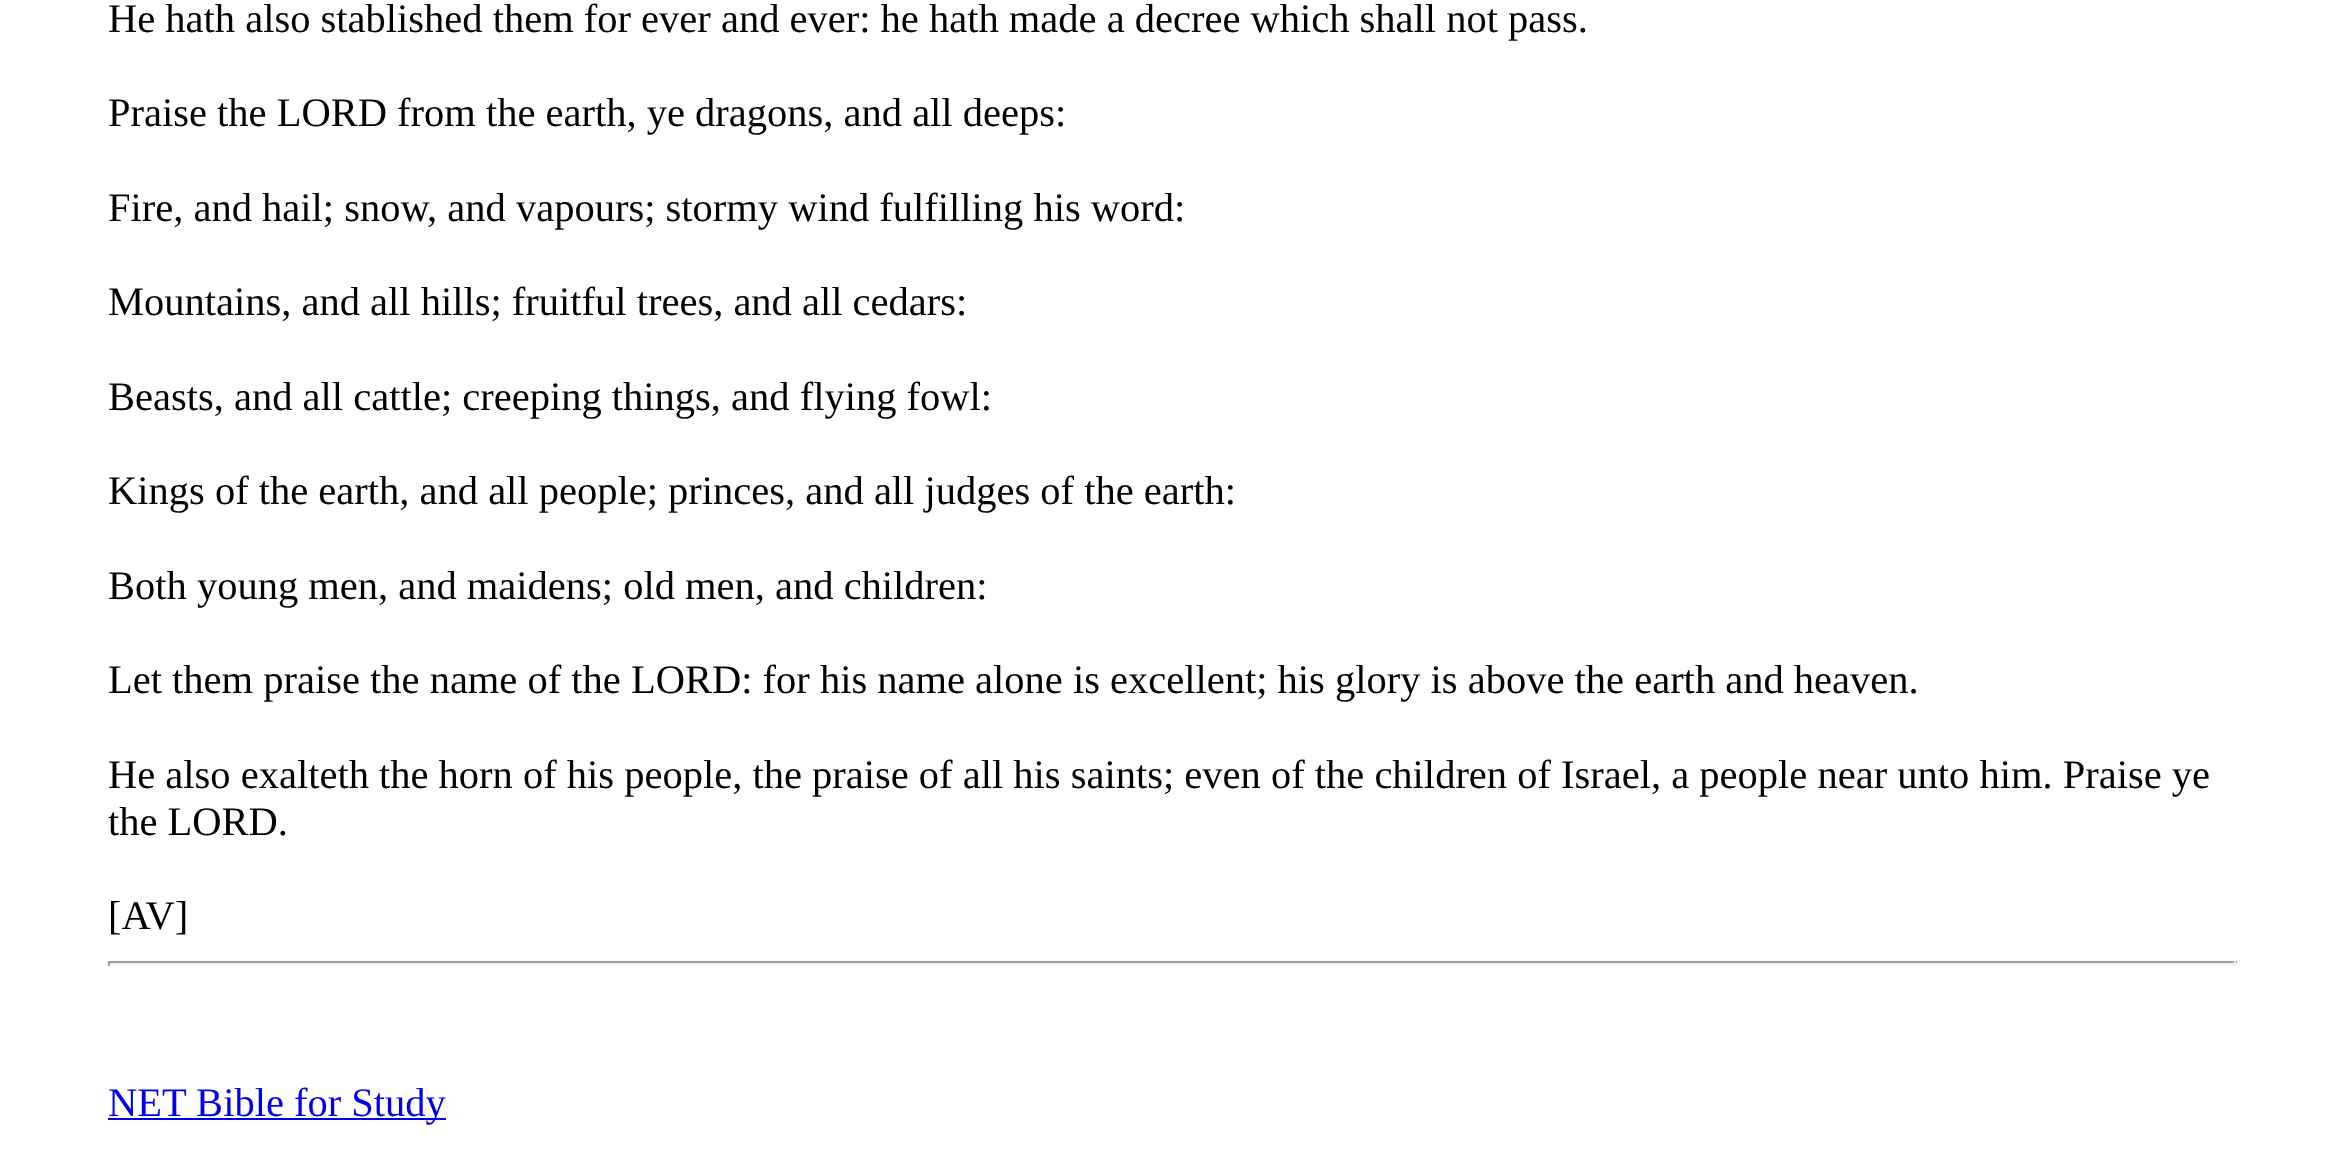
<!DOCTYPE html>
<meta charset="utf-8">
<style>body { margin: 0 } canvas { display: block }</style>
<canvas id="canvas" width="2343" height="1162"></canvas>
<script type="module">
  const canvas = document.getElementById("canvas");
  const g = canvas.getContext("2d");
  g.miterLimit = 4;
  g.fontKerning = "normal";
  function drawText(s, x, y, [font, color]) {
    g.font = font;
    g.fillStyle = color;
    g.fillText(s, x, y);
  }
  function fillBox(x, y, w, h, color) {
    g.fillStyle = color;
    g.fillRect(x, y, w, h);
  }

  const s1 = ["40.5px Liberation Serif", "#000000"];
  const s2 = ["40.5px Liberation Serif", "#0000EE"];

  fillBox(0, 0, 2343, 1162, "#FFFFFF");
  drawText("He hath also stablished them for ever and ever: he hath made a decree which shall not pass.", 108, 32, s1);
  drawText("Praise the LORD from the earth, ye dragons, and all deeps:", 108, 126, s1);
  drawText("Fire, and hail; snow, and vapours; stormy wind fulfilling his word:", 108, 221, s1);
  drawText("Mountains, and all hills; fruitful trees, and all cedars:", 108, 315, s1);
  drawText("Beasts, and all cattle; creeping things, and flying fowl:", 108, 410, s1);
  drawText("Kings of the earth, and all people; princes, and all judges of the earth:", 108, 504, s1);
  drawText("Both young men, and maidens; old men, and children:", 108, 599, s1);
  drawText("Let them praise the name of the LORD: for his name alone is excellent; his glory is above the earth and heaven.", 108, 693, s1);
  drawText("He also exalteth the horn of his people, the praise of all his saints; even of the children of Israel, a people near unto him. Praise ye", 108, 788, s1);
  drawText("the LORD.", 108, 835, s1);
  drawText("[AV]", 108, 929, s1);
  fillBox(108, 961, 2129, 2, "#9F9F9F");
  fillBox(2234, 961, 2, 5, "#EEEEEE");
  fillBox(108, 963, 2129, 2, "#EEEEEE");
  fillBox(108, 961, 2, 5, "#9F9F9F");
  fillBox(108, 1118, 338, 2, "#0000EE");
  drawText("NET Bible for Study", 108, 1116, s2);
</script>
